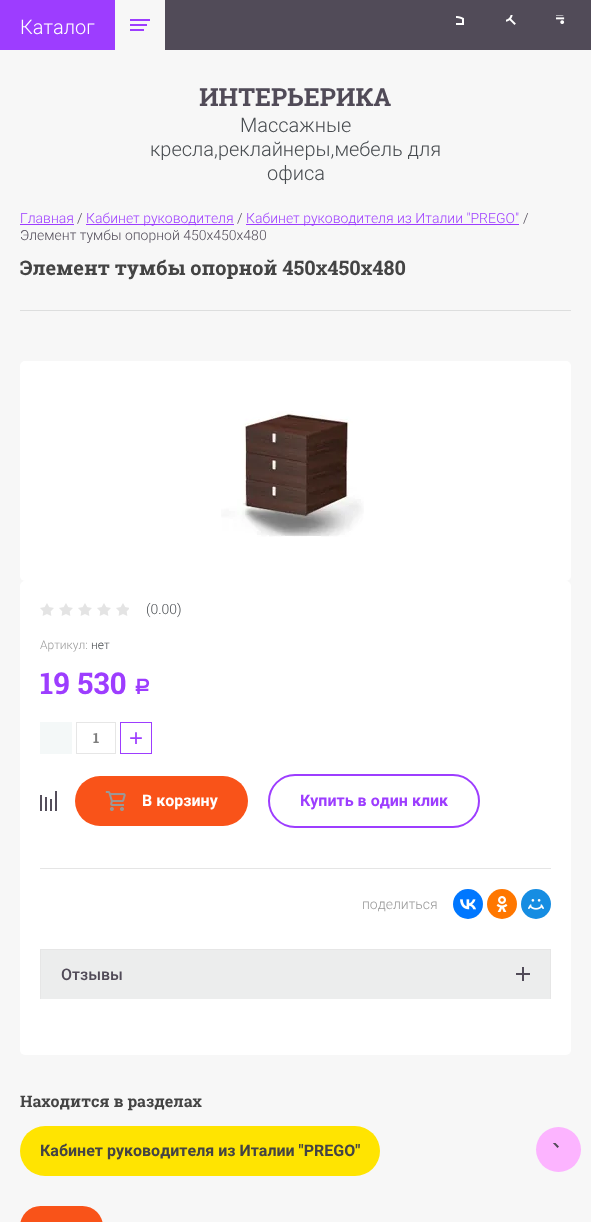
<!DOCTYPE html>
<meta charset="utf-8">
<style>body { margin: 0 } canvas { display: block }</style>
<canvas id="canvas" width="591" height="1222"></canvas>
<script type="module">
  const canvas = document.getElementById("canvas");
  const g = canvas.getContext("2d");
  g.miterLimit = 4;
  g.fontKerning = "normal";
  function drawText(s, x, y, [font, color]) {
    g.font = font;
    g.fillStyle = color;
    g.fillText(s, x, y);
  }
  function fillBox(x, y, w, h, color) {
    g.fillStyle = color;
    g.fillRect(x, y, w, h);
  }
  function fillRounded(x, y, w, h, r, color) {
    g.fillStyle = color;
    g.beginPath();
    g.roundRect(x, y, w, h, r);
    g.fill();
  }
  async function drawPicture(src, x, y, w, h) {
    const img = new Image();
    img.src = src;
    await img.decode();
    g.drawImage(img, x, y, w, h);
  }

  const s1 = ["300 20px Roboto", "#FFFFFF"];
  const s2 = ["bold 25px Roboto Slab", "#514B58"];
  const s3 = ["300 20px Roboto", "#484C50"];
  const s4 = ["300 14px Roboto", "#9D3DFF"];
  const s5 = ["300 14px Roboto", "#514B58"];
  const s6 = ["bold 20px Roboto Slab", "#444444"];
  const s7 = ["300 14px Roboto", "#484C50"];
  const s8 = ["300 12px Roboto", "#999999"];
  const s9 = ["300 12px Roboto", "#484C50"];
  const s10 = ["bold 30px Roboto Slab", "#9D3DFF"];
  const s11 = ["bold 21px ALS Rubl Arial", "#9D3DFF"];
  const s12 = ["bold 14px Roboto Slab", "#7E7E7E"];
  const s13 = ["24px Liberation Sans", "#9D3DFF"];
  const s14 = ["bold 16px Roboto", "#FFFFFF"];
  const s15 = ["bold 16px Roboto", "#9D3DFF"];
  const s16 = ["300 14px Roboto", "#999999"];
  const s17 = ["500 16px Roboto", "#514B58"];
  const s18 = ["bold 16px Roboto Slab", "#444444"];
  const s19 = ["bold 16px Roboto", "#444444"];

  fillBox(0, 0, 591, 1222, "#F7F7F7");
  fillBox(165, 0, 426, 50, "#514B58");
  fillBox(0, 0, 115, 50, "#9D3DFF");
  drawText("Каталог", 20, 34, s1);
  fillBox(130, 19, 20, 2, "#9D3DFF");
  fillBox(130, 24, 17, 2, "#9D3DFF");
  fillBox(130, 29, 14, 2, "#9D3DFF");
  await drawPicture("pic1.png", 456, 16, 8, 9);
  await drawPicture("pic2.png", 506, 15, 10, 10);
  await drawPicture("pic3.png", 556, 15, 9, 9);
  drawText("ИНТЕРЬЕРИКА", 199, 106, s2);
  drawText("Массажные", 240, 132, s3);
  drawText("кресла,реклайнеры,мебель для", 150, 156, s3);
  drawText("офиса", 267, 180, s3);
  drawText("Главная", 20, 223, s4);
  fillBox(20, 224, 54, 1, "#9D3DFF");
  drawText("/", 77, 223, s5);
  fillBox(86, 224, 148, 1, "#9D3DFF");
  drawText("Кабинет руководителя", 86, 223, s4);
  drawText("/", 237, 223, s5);
  fillBox(246, 224, 273, 1, "#9D3DFF");
  drawText("Кабинет руководителя из Италии \"PREGO\"", 246, 223, s4);
  drawText("/", 523, 223, s5);
  drawText("Элемент тумбы опорной 450x450x480", 20, 240, s5);
  fillBox(20, 310, 551, 1, "#DDDEDE");
  drawText("Элемент тумбы опорной 450x450x480", 20, 275, s6);
  fillRounded(20, 361, 551, 220, 5, "#FFFFFF");
  await drawPicture("pic4.png", 221, 411, 143, 126);
  fillRounded(20, 581, 551, 474, 5, "#FFFFFF");
  await drawPicture("pic5.png", 40, 603, 89, 13);
  drawText("(0.00)", 146, 614, s7);
  drawText("Артикул:", 40, 649, s8);
  drawText("нет", 91, 649, s9);
  drawText("19 530", 40, 694, s10);
  drawText("Р", 134, 694, s11);
  fillBox(40, 722, 32, 32, "#F4F8F8");
  g.strokeStyle = "#E6E6E6";
  g.strokeRect(76.5, 722.5, 39, 31);
  drawText("1", 93, 743, s12);
  g.strokeStyle = "#9D3DFF";
  g.strokeRect(120.5, 722.5, 31, 31);
  drawText("+", 129, 746, s13);
  await drawPicture("pic6.png", 40, 791, 17, 20);
  fillRounded(75, 776, 173, 50, 25, "#F95319");
  await drawPicture("pic7.png", 105, 791, 21, 20);
  drawText("В корзину", 142, 806, s14);
  g.beginPath();
  g.roundRect(269, 775, 210, 52, 26);
  g.lineWidth = 2;
  g.stroke();
  drawText("Купить в один клик", 300, 806, s15);
  fillBox(40, 868, 511, 1, "#E5E5E5");
  drawText("поделиться", 362, 909, s16);
  g.fillStyle = "#0077FF";
  g.beginPath();
  g.arc(468, 904, 15, 0, Math.PI * 2);
  g.fill();
  await drawPicture("pic8.png", 460, 899, 16, 11);
  g.fillStyle = "#FF7700";
  g.beginPath();
  g.arc(502, 904, 15, 0, Math.PI * 2);
  g.fill();
  await drawPicture("pic9.png", 496, 896, 12, 16);
  g.fillStyle = "#168DE2";
  g.beginPath();
  g.arc(536, 904, 15, 0, Math.PI * 2);
  g.fill();
  await drawPicture("pic10.png", 528, 899, 16, 11);
  fillBox(41, 950, 509, 49, "#ECEDED");
  fillBox(40, 949, 511, 1, "#E6E6E6");
  fillBox(550, 949, 1, 50, "#E6E6E6");
  fillBox(40, 949, 1, 50, "#E6E6E6");
  drawText("Отзывы", 61, 980, s17);
  fillBox(522, 967, 2, 14, "#514B58");
  fillBox(516, 973, 14, 2, "#514B58");
  drawText("Находится в разделах", 20, 1107, s18);
  fillRounded(20, 1126, 360, 50, 25, "#FFE401");
  drawText("Кабинет руководителя из Италии \"PREGO\"", 40, 1156, s19);
  fillRounded(20, 1206, 83, 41, 25, "#F95319");
  g.fillStyle = "#FCB4FF";
  g.beginPath();
  g.arc(558.5, 1149.5, 22.5, 0, Math.PI * 2);
  g.fill();
  g.save();
  g.beginPath();
  g.rect(550, 1143, 18, 14);
  g.clip();
  g.fillStyle = "#514B58";
  g.beginPath();
  g.moveTo(543, 1148);
  g.lineTo(541.5, 1147);
  g.lineTo(550.5, 1138);
  g.lineTo(559, 1146.5);
  g.lineTo(557.5, 1148);
  g.lineTo(550.5, 1140.5);
  g.closePath();
  g.fill();
  g.restore();
</script>
